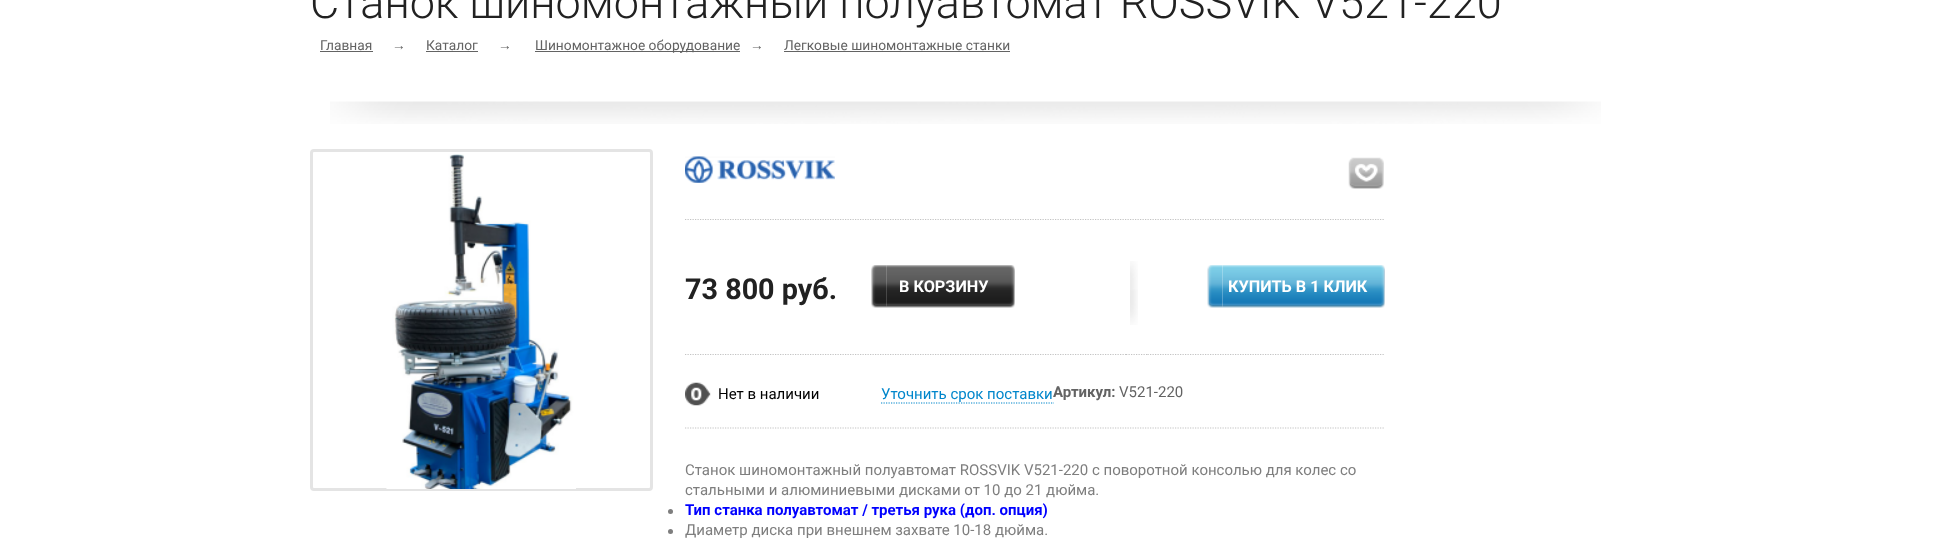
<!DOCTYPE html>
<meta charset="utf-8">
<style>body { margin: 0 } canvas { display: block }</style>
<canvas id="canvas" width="1944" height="546"></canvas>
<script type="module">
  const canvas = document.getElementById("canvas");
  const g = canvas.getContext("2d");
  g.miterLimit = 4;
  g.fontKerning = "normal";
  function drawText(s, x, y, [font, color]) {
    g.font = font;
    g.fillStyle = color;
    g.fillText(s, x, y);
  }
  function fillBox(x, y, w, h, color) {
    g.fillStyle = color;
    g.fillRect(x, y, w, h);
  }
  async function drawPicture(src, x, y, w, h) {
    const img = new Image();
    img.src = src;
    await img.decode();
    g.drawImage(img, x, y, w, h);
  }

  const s1 = ["300 45px Roboto", "#212121"];
  const s2 = ["13.75px Roboto", "#636363"];
  const s3 = ["13.75px Liberation Sans", "#636363"];
  const s4 = ["bold 28.75px Roboto", "#212121"];
  const s5 = ["bold 16.25px Roboto", "#FFFFFF"];
  const s6 = ["15px Roboto", "#000000"];
  const s7 = ["15px Roboto", "#0086CB"];
  const s8 = ["bold 15px Roboto", "#636363"];
  const s9 = ["15px Roboto", "#636363"];
  const s10 = ["15px Roboto", "#7E7E7E"];
  const s11 = ["bold 15px Roboto", "#0000FF"];

  fillBox(0, 0, 1944, 546, "#FFFFFF");
  drawText("Станок шиномонтажный полуавтомат ROSSVIK V521-220", 310, 18, s1);
  drawText("Главная", 320, 50, s2);
  fillBox(320, 51, 53, 1, "#636363");
  drawText("→", 392, 50, s3);
  drawText("Каталог", 426, 50, s2);
  fillBox(426, 51, 52, 1, "#636363");
  drawText("→", 498, 50, s3);
  fillBox(535, 51, 205, 1, "#636363");
  drawText("Шиномонтажное оборудование", 535, 50, s2);
  drawText("→", 750, 50, s3);
  drawText("Легковые шиномонтажные станки", 784, 50, s2);
  fillBox(784, 51, 226, 1, "#636363");
  await drawPicture("pic1.png", 330, 101, 1271, 23);
  g.beginPath();
  g.roundRect(311.5, 150.5, 340, 339, 2.5);
  g.strokeStyle = "#E4E4E4";
  g.lineWidth = 3;
  g.stroke();
  await drawPicture("pic2.png", 386, 154, 190, 335);
  g.beginPath();
  g.moveTo(685, 219.5);
  g.lineTo(1385, 219.5);
  g.strokeStyle = "#C3C3C3";
  g.lineWidth = 1.2;
  g.setLineDash([1.25, 1.25]);
  g.stroke();
  await drawPicture("pic3.png", 685, 156, 150, 27);
  await drawPicture("pic4.png", 1348, 157, 36, 32);
  g.beginPath();
  g.moveTo(685, 354.5);
  g.lineTo(1126, 354.5);
  g.stroke();
  drawText("73 800 руб.", 685, 299, s4);
  await drawPicture("pic5.png", 871, 265, 16, 43);
  await drawPicture("pic6.png", 886, 265, 129, 43);
  drawText("В КОРЗИНУ", 899, 292, s5);
  g.beginPath();
  g.moveTo(1126, 354.5);
  g.lineTo(1147.5, 354.5);
  g.stroke();
  await drawPicture("pic7.png", 1130, 261, 8, 64);
  g.beginPath();
  g.moveTo(1147.5, 354.5);
  g.lineTo(1385, 354.5);
  g.stroke();
  await drawPicture("pic8.png", 1207, 265, 16, 43);
  await drawPicture("pic9.png", 1222, 265, 163, 43);
  drawText("КУПИТЬ В 1 КЛИК", 1228, 292, s5);
  g.beginPath();
  g.moveTo(685, 428);
  g.lineTo(1385, 428);
  g.stroke();
  await drawPicture("pic10.png", 685, 382, 26, 24);
  drawText("Нет в наличии", 718, 399, s6);
  g.beginPath();
  g.moveTo(881, 403);
  g.lineTo(1054, 403);
  g.strokeStyle = "#0086CB";
  g.stroke();
  drawText("Уточнить срок поставки", 881, 399, s7);
  drawText("Артикул:", 1053, 397, s8);
  drawText("V521-220", 1119, 397, s9);
  drawText("Станок шиномонтажный полуавтомат ROSSVIK V521-220 с поворотной консолью для колес со", 685, 475, s10);
  drawText("стальными и алюминиевыми дисками от 10 до 21 дюйма.", 685, 495, s10);
  g.beginPath();
  g.arc(670.5, 511.5, 2.5, 0, Math.PI * 2);
  g.fill();
  drawText("Тип станка полуавтомат / третья рука (доп. опция)", 685, 515, s11);
  g.fillStyle = "#7E7E7E";
  g.beginPath();
  g.arc(670.5, 531.5, 2.5, 0, Math.PI * 2);
  g.fill();
  drawText("Диаметр диска при внешнем захвате 10-18 дюйма.", 685, 535, s10);
</script>
